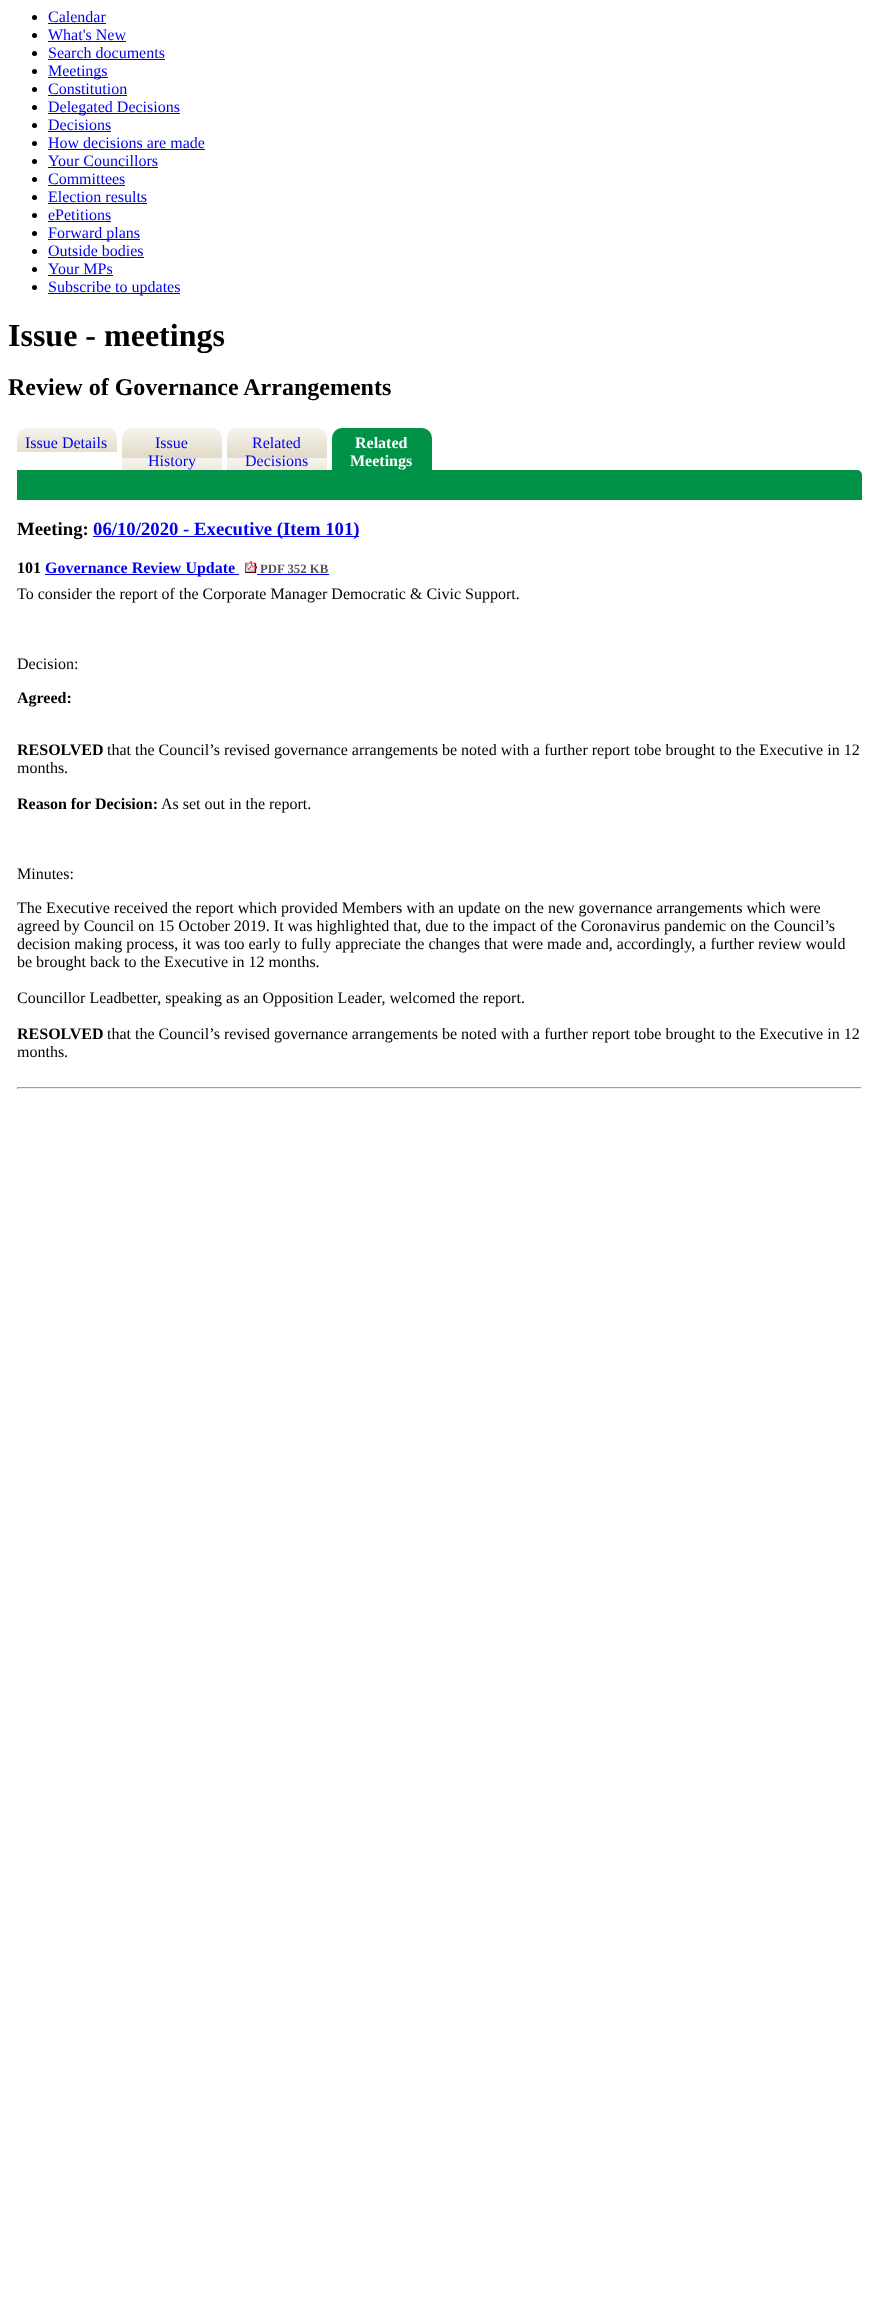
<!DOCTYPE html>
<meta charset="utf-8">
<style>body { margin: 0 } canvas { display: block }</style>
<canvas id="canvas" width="870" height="2310"></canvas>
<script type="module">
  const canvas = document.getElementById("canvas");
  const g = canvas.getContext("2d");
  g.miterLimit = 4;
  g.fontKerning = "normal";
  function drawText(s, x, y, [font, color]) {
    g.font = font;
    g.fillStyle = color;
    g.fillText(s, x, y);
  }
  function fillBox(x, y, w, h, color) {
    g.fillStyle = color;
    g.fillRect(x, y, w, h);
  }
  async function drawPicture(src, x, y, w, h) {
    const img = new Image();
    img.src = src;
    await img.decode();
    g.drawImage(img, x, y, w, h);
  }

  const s1 = ["16px Liberation Serif", "#0000EE"];
  const s2 = ["bold 32px Liberation Serif", "#000000"];
  const s3 = ["bold 24px Liberation Serif", "#000000"];
  const s4 = ["bold 16px Liberation Serif", "#FFFFFF"];
  const s5 = ["bold 18.75px Liberation Serif", "#000000"];
  const s6 = ["bold 18.75px Liberation Serif", "#0000EE"];
  const s7 = ["bold 16px Liberation Serif", "#000000"];
  const s8 = ["bold 16px Liberation Serif", "#0000EE"];
  const s9 = ["bold 12.75px Liberation Serif", "#555555"];
  const s10 = ["16px Liberation Serif", "#000000"];

  fillBox(0, 0, 870, 2310, "#FFFFFF");
  g.fillStyle = "#000000";
  g.beginPath();
  g.arc(34.5, 17.5, 2.5, 0, Math.PI * 2);
  g.fill();
  drawText("Calendar", 48, 22, s1);
  fillBox(48, 23, 58, 1, "#0000EE");
  g.fillStyle = "#000000";
  g.beginPath();
  g.arc(34.5, 35.5, 2.5, 0, Math.PI * 2);
  g.fill();
  drawText("What's New", 48, 40, s1);
  fillBox(48, 41, 78, 1, "#0000EE");
  g.fillStyle = "#000000";
  g.beginPath();
  g.arc(34.5, 53.5, 2.5, 0, Math.PI * 2);
  g.fill();
  drawText("Search documents", 48, 58, s1);
  fillBox(48, 59, 117, 1, "#0000EE");
  g.fillStyle = "#000000";
  g.beginPath();
  g.arc(34.5, 71.5, 2.5, 0, Math.PI * 2);
  g.fill();
  fillBox(48, 77, 60, 1, "#0000EE");
  drawText("Meetings", 48, 76, s1);
  g.fillStyle = "#000000";
  g.beginPath();
  g.arc(34.5, 89.5, 2.5, 0, Math.PI * 2);
  g.fill();
  drawText("Constitution", 48, 94, s1);
  fillBox(48, 95, 79, 1, "#0000EE");
  g.fillStyle = "#000000";
  g.beginPath();
  g.arc(34.5, 107.5, 2.5, 0, Math.PI * 2);
  g.fill();
  fillBox(48, 113, 132, 1, "#0000EE");
  drawText("Delegated Decisions", 48, 112, s1);
  g.fillStyle = "#000000";
  g.beginPath();
  g.arc(34.5, 125.5, 2.5, 0, Math.PI * 2);
  g.fill();
  drawText("Decisions", 48, 130, s1);
  fillBox(48, 131, 63, 1, "#0000EE");
  g.fillStyle = "#000000";
  g.beginPath();
  g.arc(34.5, 143.5, 2.5, 0, Math.PI * 2);
  g.fill();
  drawText("How decisions are made", 48, 148, s1);
  fillBox(48, 149, 157, 1, "#0000EE");
  g.fillStyle = "#000000";
  g.beginPath();
  g.arc(34.5, 161.5, 2.5, 0, Math.PI * 2);
  g.fill();
  drawText("Your Councillors", 48, 166, s1);
  fillBox(48, 167, 110, 1, "#0000EE");
  g.fillStyle = "#000000";
  g.beginPath();
  g.arc(34.5, 179.5, 2.5, 0, Math.PI * 2);
  g.fill();
  drawText("Committees", 48, 184, s1);
  fillBox(48, 185, 77, 1, "#0000EE");
  g.fillStyle = "#000000";
  g.beginPath();
  g.arc(34.5, 197.5, 2.5, 0, Math.PI * 2);
  g.fill();
  drawText("Election results", 48, 202, s1);
  fillBox(48, 203, 99, 1, "#0000EE");
  g.fillStyle = "#000000";
  g.beginPath();
  g.arc(34.5, 215.5, 2.5, 0, Math.PI * 2);
  g.fill();
  drawText("ePetitions", 48, 220, s1);
  fillBox(48, 221, 63, 1, "#0000EE");
  g.fillStyle = "#000000";
  g.beginPath();
  g.arc(34.5, 233.5, 2.5, 0, Math.PI * 2);
  g.fill();
  fillBox(48, 239, 92, 1, "#0000EE");
  drawText("Forward plans", 48, 238, s1);
  g.fillStyle = "#000000";
  g.beginPath();
  g.arc(34.5, 251.5, 2.5, 0, Math.PI * 2);
  g.fill();
  drawText("Outside bodies", 48, 256, s1);
  fillBox(48, 257, 96, 1, "#0000EE");
  g.fillStyle = "#000000";
  g.beginPath();
  g.arc(34.5, 269.5, 2.5, 0, Math.PI * 2);
  g.fill();
  drawText("Your MPs", 48, 274, s1);
  fillBox(48, 275, 65, 1, "#0000EE");
  g.fillStyle = "#000000";
  g.beginPath();
  g.arc(34.5, 287.5, 2.5, 0, Math.PI * 2);
  g.fill();
  fillBox(48, 293, 132, 1, "#0000EE");
  drawText("Subscribe to updates", 48, 292, s1);
  drawText("Issue - meetings", 8, 346, s2);
  drawText("Review of Governance Arrangements", 8, 395, s3);
  g.fillStyle = "#F3F3F3";
  g.beginPath();
  g.roundRect(17, 428, 100, 24, [10, 10, 0, 0]);
  g.fill();
  await drawPicture("pic1.png", 17, 428, 100, 24);
  drawText("Issue Details", 25, 448, s1);
  g.fillStyle = "#F3F3F3";
  g.beginPath();
  g.roundRect(122, 428, 100, 42, [10, 10, 0, 0]);
  g.fill();
  await drawPicture("pic2.png", 122, 428, 100, 42);
  drawText("Issue", 155, 448, s1);
  drawText("History", 148, 466, s1);
  g.fillStyle = "#F3F3F3";
  g.beginPath();
  g.roundRect(227, 428, 100, 42, [10, 10, 0, 0]);
  g.fill();
  await drawPicture("pic2.png", 227, 428, 100, 42);
  drawText("Related", 252, 448, s1);
  drawText("Decisions", 245, 466, s1);
  g.fillStyle = "#009247";
  g.beginPath();
  g.roundRect(332, 428, 100, 42, [10, 10, 0, 0]);
  g.fill();
  drawText("Related", 355, 448, s4);
  drawText("Meetings", 350, 466, s4);
  g.fillStyle = "#009247";
  g.beginPath();
  g.roundRect(17, 470, 845, 30, [0, 5, 0, 0]);
  g.fill();
  drawText("Meeting:", 17, 535, s5);
  fillBox(93, 536, 266, 1, "#0000EE");
  drawText("06/10/2020 - Executive (Item 101)", 93, 535, s6);
  drawText("101", 17, 573, s7);
  fillBox(45, 574, 194, 1, "#0000EE");
  drawText("Governance Review Update", 45, 573, s8);
  await drawPicture("pic3.png", 245, 561, 12, 12);
  drawText("PDF 352 KB", 260, 573, s9);
  fillBox(257, 574, 72, 1, "#0000EE");
  drawText("To consider the report of the Corporate Manager Democratic & Civic Support.", 17, 599, s10);
  drawText("Decision:", 17, 669, s10);
  drawText("Agreed:", 17, 703, s7);
  drawText("RESOLVED", 17, 755, s7);
  drawText("that the Council’s revised governance arrangements be noted with a further report tobe brought to the Executive in 12", 107, 755, s10);
  drawText("months.", 17, 773, s10);
  drawText("Reason for Decision:", 17, 809, s7);
  drawText("As set out in the report.", 161, 809, s10);
  drawText("Minutes:", 17, 879, s10);
  drawText("The Executive received the report which provided Members with an update on the new governance arrangements which were", 17, 913, s10);
  drawText("agreed by Council on 15 October 2019. It was highlighted that, due to the impact of the Coronavirus pandemic on the Council’s", 17, 931, s10);
  drawText("decision making process, it was too early to fully appreciate the changes that were made and, accordingly, a further review would", 17, 949, s10);
  drawText("be brought back to the Executive in 12 months.", 17, 967, s10);
  drawText("Councillor Leadbetter, speaking as an Opposition Leader, welcomed the report.", 17, 1003, s10);
  drawText("RESOLVED", 17, 1039, s7);
  drawText("that the Council’s revised governance arrangements be noted with a further report tobe brought to the Executive in 12", 107, 1039, s10);
  drawText("months.", 17, 1057, s10);
  fillBox(17, 1087, 845, 1, "#9F9F9F");
  fillBox(861, 1087, 1, 2, "#EEEEEE");
  fillBox(17, 1088, 845, 1, "#EEEEEE");
  fillBox(17, 1087, 1, 2, "#9F9F9F");
</script>
